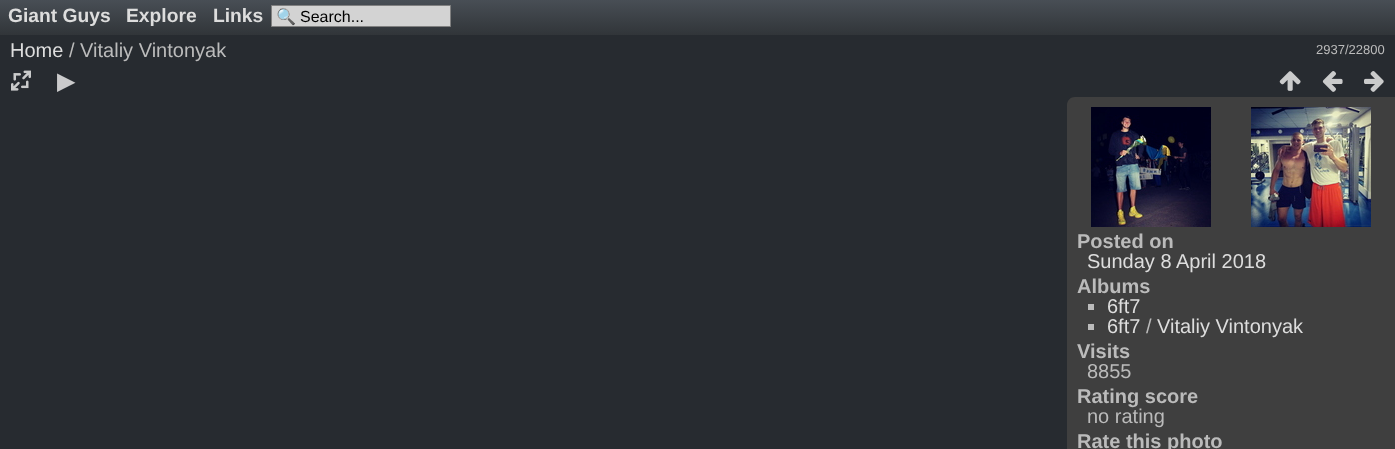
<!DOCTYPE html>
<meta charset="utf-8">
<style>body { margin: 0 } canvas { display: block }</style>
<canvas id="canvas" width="1395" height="449"></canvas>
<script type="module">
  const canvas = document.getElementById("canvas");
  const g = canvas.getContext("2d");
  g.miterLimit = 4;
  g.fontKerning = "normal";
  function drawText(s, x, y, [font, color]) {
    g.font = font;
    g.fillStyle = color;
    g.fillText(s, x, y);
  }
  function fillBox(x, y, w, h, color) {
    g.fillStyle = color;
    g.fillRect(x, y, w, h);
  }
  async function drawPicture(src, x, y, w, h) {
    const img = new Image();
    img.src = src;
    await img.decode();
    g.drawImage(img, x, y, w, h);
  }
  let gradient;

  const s1 = ["bold 19.25px Liberation Sans", "#DDDDDD"];
  const s2 = ["16px Noto Color Emoji", "#000000"];
  const s3 = ["16px Liberation Sans", "#000000"];
  const s4 = ["20px Liberation Sans", "#DDDDDD"];
  const s5 = ["20px Liberation Sans", "#BBBBBB"];
  const s6 = ["13px Liberation Sans", "#BBBBBB"];
  const s7 = ["24px DejaVu Sans", "#CBCBCC"];
  const s8 = ["bold 20px Liberation Sans", "#BBBBBB"];

  fillBox(0, 0, 1395, 449, "#272B30");
  gradient = g.createLinearGradient(698, 0, 698, 35);
  gradient.addColorStop(0, "#484E55");
  gradient.addColorStop(0.6, "#3A3F44");
  gradient.addColorStop(1, "#313539");
  g.fillStyle = gradient;
  g.fillRect(0, 0, 1395, 35);
  drawText("Giant Guys", 8, 22, s1);
  drawText("Explore", 126, 22, s1);
  drawText("Links", 213, 22, s1);
  g.fillStyle = "#D3D3D3";
  g.beginPath();
  g.rect(271.5, 5.5, 179, 21);
  g.fill();
  g.strokeStyle = "#808080";
  g.stroke();
  drawText("🔍", 276, 22, s2);
  drawText("Search...", 300, 22, s3);
  drawText("Home", 10, 57, s4);
  drawText("/ Vitaliy Vintonyak", 69, 57, s5);
  drawText("2937/22800", 1316, 54, s6);
  await drawPicture("pic1.png", 11, 70, 20, 21);
  drawText("▶", 57, 89, s7);
  await drawPicture("pic2.png", 1279, 71, 22, 20);
  await drawPicture("pic3.png", 1322, 71, 21, 21);
  await drawPicture("pic4.png", 1364, 71, 20, 21);
  g.fillStyle = "#3F3F3F";
  g.beginPath();
  g.moveTo(1075, 97);
  g.lineTo(1395, 97);
  g.lineTo(1395, 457);
  g.lineTo(1075, 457);
  g.bezierCurveTo(1070.5, 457, 1067, 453.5, 1067, 449);
  g.lineTo(1067, 105);
  g.bezierCurveTo(1067, 100.5, 1070.5, 97, 1075, 97);
  g.closePath();
  g.fill();
  await drawPicture("pic5.png", 1091, 107, 120, 120);
  await drawPicture("pic6.png", 1251, 107, 120, 120);
  drawText("Posted on", 1077, 248, s8);
  drawText("Sunday 8 April 2018", 1087, 268, s4);
  drawText("Albums", 1077, 293, s8);
  fillBox(1088, 304, 6, 6, "#BBBBBB");
  drawText("6ft7", 1107, 313, s4);
  fillBox(1088, 324, 6, 6, "#BBBBBB");
  drawText("6ft7", 1107, 333, s4);
  drawText("/", 1146, 333, s5);
  drawText("Vitaliy Vintonyak", 1157, 333, s4);
  drawText("Visits", 1077, 358, s8);
  drawText("8855", 1087, 378, s5);
  drawText("Rating score", 1077, 403, s8);
  drawText("no rating", 1087, 423, s5);
  drawText("Rate this photo", 1077, 448, s8);
</script>
